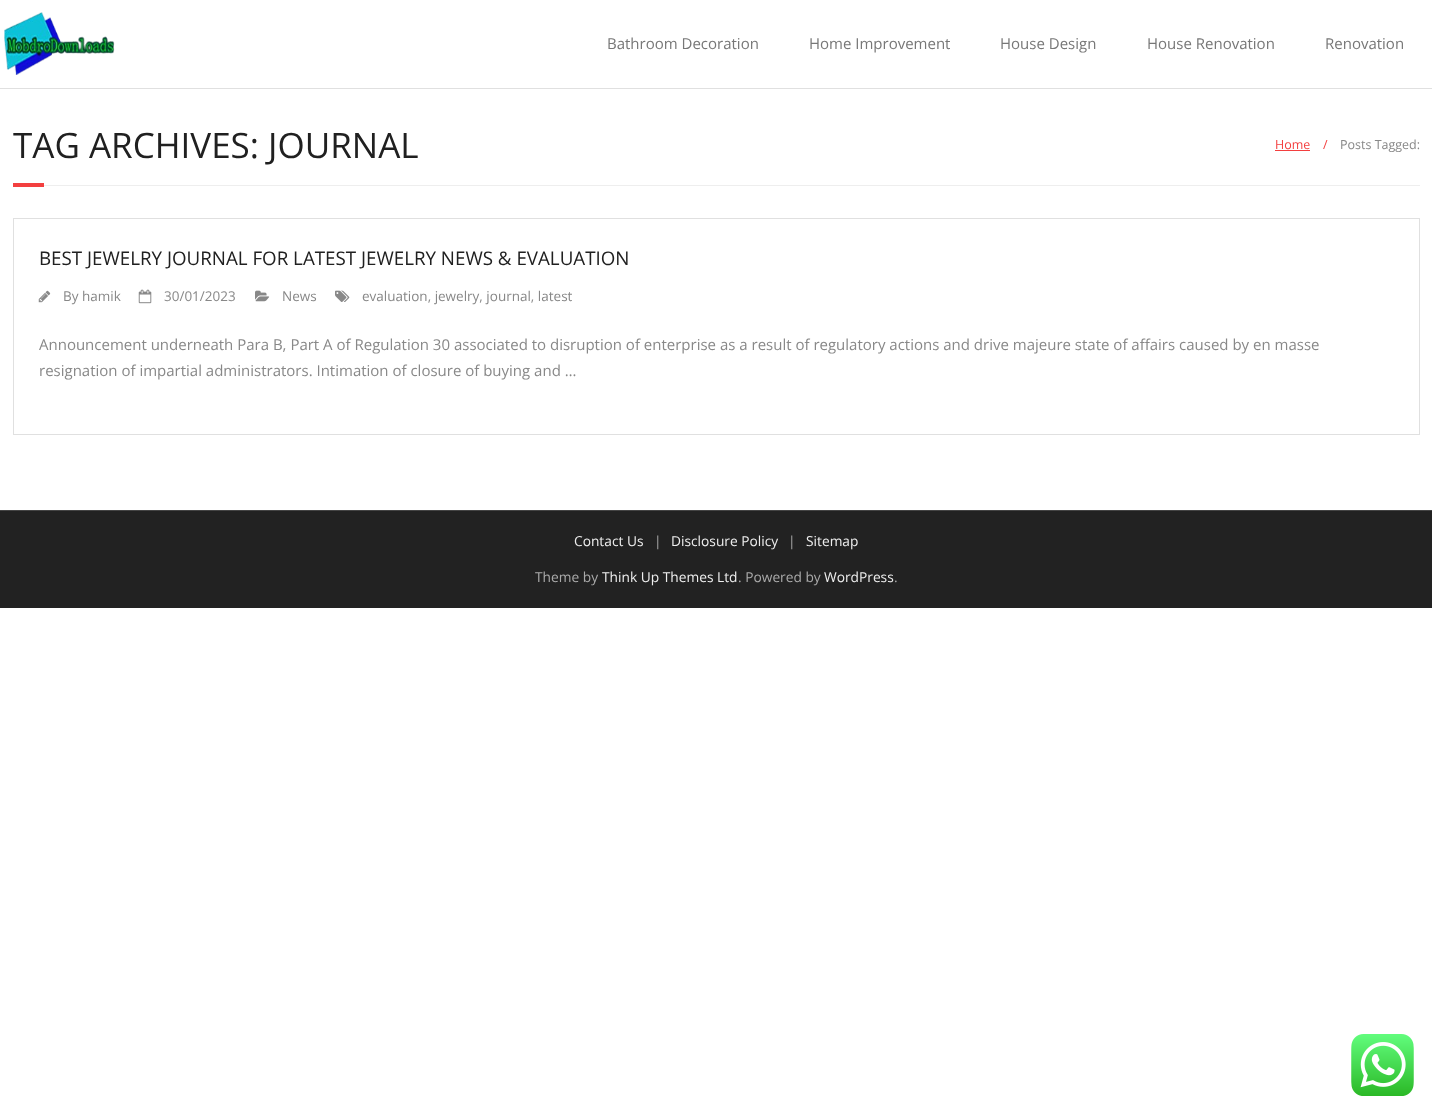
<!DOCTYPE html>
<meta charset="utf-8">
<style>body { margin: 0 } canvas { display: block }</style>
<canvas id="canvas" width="1432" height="1115"></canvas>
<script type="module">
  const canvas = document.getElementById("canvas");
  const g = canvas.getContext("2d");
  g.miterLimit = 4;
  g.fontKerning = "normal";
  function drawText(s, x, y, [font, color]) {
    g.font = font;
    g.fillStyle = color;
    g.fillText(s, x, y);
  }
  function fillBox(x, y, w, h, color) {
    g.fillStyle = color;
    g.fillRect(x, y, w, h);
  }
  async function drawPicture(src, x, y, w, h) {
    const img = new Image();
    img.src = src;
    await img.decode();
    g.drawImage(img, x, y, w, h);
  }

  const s1 = ["15px Open Sans", "#777777"];
  const s2 = ["35px Open Sans", "#202020"];
  const s3 = ["12.5px Open Sans", "#F33F3F"];
  const s4 = ["12.5px Open Sans", "#888888"];
  const s5 = ["18.75px Open Sans", "#202020"];
  const s6 = ["13.5px Open Sans", "#888888"];
  const s7 = ["15px Open Sans", "#888888"];
  const s8 = ["13.75px Open Sans", "#EEEEEE"];
  const s9 = ["13.75px Open Sans", "#AAAAAA"];

  fillBox(0, 0, 1432, 1115, "#FFFFFF");
  fillBox(0, 88, 1432, 1, "#E0E0E0");
  await drawPicture("pic1.png", 4, 12, 111, 63);
  drawText("Bathroom Decoration", 607, 49, s1);
  drawText("Home Improvement", 809, 49, s1);
  drawText("House Design", 1000, 49, s1);
  drawText("House Renovation", 1147, 49, s1);
  drawText("Renovation", 1325, 49, s1);
  drawText("TAG ARCHIVES: JOURNAL", 13, 158, s2);
  drawText("Home", 1275, 149, s3);
  fillBox(1275, 150, 35, 1, "#F33F3F");
  drawText("/", 1323, 149, s3);
  drawText("Posts Tagged:", 1340, 149, s4);
  fillBox(13, 183, 31, 4, "#F33F3F");
  fillBox(44, 185, 1376, 1, "#EEEEEE");
  g.strokeStyle = "#E0E0E0";
  g.strokeRect(13.5, 218.5, 1406, 216);
  drawText("BEST JEWELRY JOURNAL FOR LATEST JEWELRY NEWS & EVALUATION", 39, 265, s5);
  await drawPicture("pic2.png", 38, 290, 13, 13);
  drawText("By hamik", 63, 301, s6);
  await drawPicture("pic3.png", 138, 289, 14, 15);
  drawText("30/01/2023", 164, 301, s6);
  await drawPicture("pic4.png", 255, 290, 15, 12);
  drawText("News", 282, 301, s6);
  await drawPicture("pic5.png", 335, 290, 15, 12);
  drawText("evaluation, jewelry, journal, latest", 362, 301, s6);
  drawText("Announcement underneath Para B, Part A of Regulation 30 associated to disruption of enterprise as a result of regulatory actions and drive majeure state of affairs caused by en masse", 39, 350, s7);
  drawText("resignation of impartial administrators. Intimation of closure of buying and …", 39, 376, s7);
  fillBox(0, 511, 1432, 97, "#222222");
  fillBox(0, 510, 1432, 1, "#444444");
  drawText("Contact Us", 574, 546, s8);
  drawText("|", 654, 546, s9);
  drawText("Disclosure Policy", 671, 546, s8);
  drawText("|", 788, 546, s9);
  drawText("Sitemap", 806, 546, s8);
  drawText("Theme by", 535, 582, s9);
  drawText("Think Up Themes Ltd", 602, 582, s8);
  drawText(". Powered by", 738, 582, s9);
  drawText("WordPress", 824, 582, s8);
  drawText(".", 894, 582, s9);
  await drawPicture("pic6.png", 1351, 1034, 63, 62);
</script>
